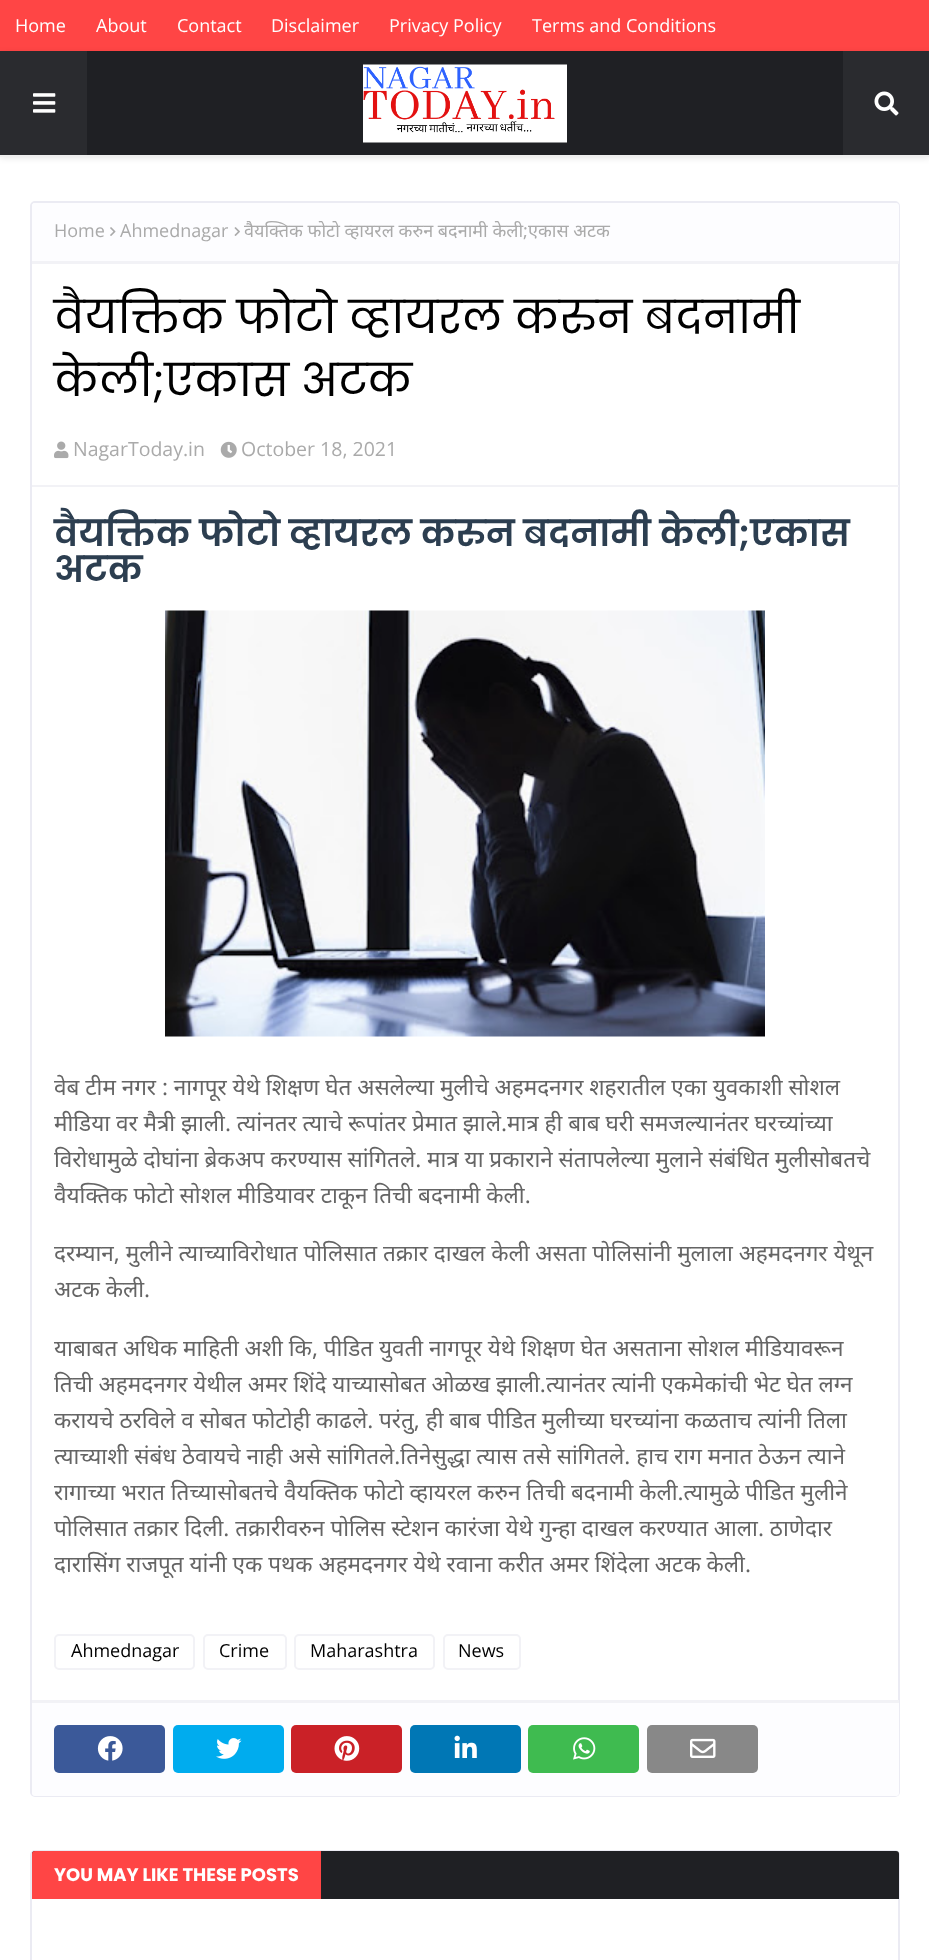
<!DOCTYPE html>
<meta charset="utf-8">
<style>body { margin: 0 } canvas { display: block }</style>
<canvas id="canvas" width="929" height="1960"></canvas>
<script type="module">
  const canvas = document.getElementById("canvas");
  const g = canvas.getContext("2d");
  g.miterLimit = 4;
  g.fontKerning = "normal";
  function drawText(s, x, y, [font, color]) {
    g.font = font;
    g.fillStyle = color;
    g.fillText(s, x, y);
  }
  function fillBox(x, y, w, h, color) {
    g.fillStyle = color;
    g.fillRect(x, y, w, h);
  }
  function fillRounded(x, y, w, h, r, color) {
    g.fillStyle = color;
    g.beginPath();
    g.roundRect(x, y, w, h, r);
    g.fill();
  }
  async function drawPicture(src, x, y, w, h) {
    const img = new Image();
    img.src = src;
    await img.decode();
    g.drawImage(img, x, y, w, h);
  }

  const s1 = ["18px Open Sans", "#FFFFFF"];
  const s2 = ["18px Open Sans", "#AAAAAA"];
  const s3 = ["18px Noto Sans", "#AAAAAA"];
  const s4 = ["45px Poppins", "#000000"];
  const s5 = ["19.5px Open Sans", "#AAAAAA"];
  const s6 = ["600 36px Poppins", "#2C3E50"];
  const s7 = ["22.5px Noto Sans", "#656565"];
  const s8 = ["18px Open Sans", "#000000"];
  const s9 = ["bold 18px Poppins", "#FFFFFF"];

  fillBox(0, 0, 929, 1960, "#FFFFFF");
  fillBox(0, 0, 929, 51, "#FF4545");
  drawText("Home", 15, 32, s1);
  drawText("About", 96, 32, s1);
  drawText("Contact", 177, 32, s1);
  drawText("Disclaimer", 271, 32, s1);
  drawText("Privacy Policy", 389, 32, s1);
  drawText("Terms and Conditions", 532, 32, s1);
  g.fillStyle = "rgba(0, 0, 0, 0.1)";
  g.filter = "blur(3px)";
  g.beginPath();
  g.rect(0, 53, 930, 105);
  g.fill();
  g.filter = "none";
  fillBox(0, 51, 929, 104, "#1F2024");
  fillBox(0, 155, 929, 2, "#EEEEEE");
  fillBox(0, 51, 87, 104, "rgba(255, 255, 255, 0.05)");
  await drawPicture("pic1.png", 33, 93, 23, 20);
  await drawPicture("pic2.png", 363, 64, 204, 79);
  fillBox(843, 51, 86, 104, "rgba(255, 255, 255, 0.05)");
  await drawPicture("pic3.png", 874, 91, 25, 25);
  g.beginPath();
  g.roundRect(31, 202, 868, 1594, 4);
  g.strokeStyle = "#EBEBF3";
  g.lineWidth = 2;
  g.stroke();
  g.fillStyle = "#FDFDFF";
  g.beginPath();
  g.roundRect(32, 203, 867, 61, [3, 3, 0, 0]);
  g.fill();
  fillBox(32, 261, 867, 3, "#F2F2F6");
  drawText("Home", 54, 237, s2);
  await drawPicture("pic4.png", 110, 227, 6, 9);
  drawText("Ahmednagar", 120, 237, s2);
  await drawPicture("pic5.png", 234, 227, 6, 9);
  drawText("वैयक्तिक फोटो व्हायरल करुन बदनामी केली;एकास अटक", 244, 237, s3);
  drawText("वैयक्तिक फोटो व्हायरल करुन बदनामी", 54, 333, s4);
  drawText("केली;एकास अटक", 54, 396, s4);
  await drawPicture("pic6.png", 54, 441, 15, 18);
  drawText("NagarToday.in", 73, 456, s5);
  await drawPicture("pic7.png", 220, 441, 17, 17);
  drawText("October 18, 2021", 241, 456, s5);
  fillBox(32, 485, 867, 2, "#F2F2F6");
  drawText("वैयक्तिक फोटो व्हायरल करुन बदनामी केली;एकास", 54, 546, s6);
  drawText("अटक", 54, 582, s6);
  await drawPicture("pic8.png", 165, 610, 600, 427);
  drawText("वेब टीम नगर : नागपूर येथे शिक्षण घेत असलेल्या मुलीचे अहमदनगर शहरातील एका युवकाशी सोशल", 54, 1095, s7);
  drawText("मीडिया वर मैत्री झाली. त्यांनतर त्याचे रूपांतर प्रेमात झाले.मात्र ही बाब घरी समजल्यानंतर घरच्यांच्या", 54, 1131, s7);
  drawText("विरोधामुळे दोघांना ब्रेकअप करण्यास सांगितले. मात्र या प्रकाराने संतापलेल्या मुलाने संबंधित मुलीसोबतचे", 54, 1167, s7);
  drawText("वैयक्तिक फोटो सोशल मीडियावर टाकून तिची बदनामी केली.", 54, 1203, s7);
  drawText("दरम्यान, मुलीने त्याच्याविरोधात पोलिसात तक्रार दाखल केली असता पोलिसांनी मुलाला अहमदनगर येथून", 54, 1261, s7);
  drawText("अटक केली.", 54, 1297, s7);
  drawText("याबाबत अधिक माहिती अशी कि, पीडित युवती नागपूर येथे शिक्षण घेत असताना सोशल मीडियावरून", 54, 1356, s7);
  drawText("तिची अहमदनगर येथील अमर शिंदे याच्यासोबत ओळख झाली.त्यानंतर त्यांनी एकमेकांची भेट घेत लग्न", 54, 1392, s7);
  drawText("करायचे ठरविले व सोबत फोटोही काढले. परंतु, ही बाब पीडित मुलीच्या घरच्यांना कळताच त्यांनी तिला", 54, 1428, s7);
  drawText("त्याच्याशी संबंध ठेवायचे नाही असे सांगितले.तिनेसुद्धा त्यास तसे सांगितले. हाच राग मनात ठेऊन त्याने", 54, 1464, s7);
  drawText("रागाच्या भरात तिच्यासोबतचे वैयक्तिक फोटो व्हायरल करुन तिची बदनामी केली.त्यामुळे पीडित मुलीने", 54, 1500, s7);
  drawText("पोलिसात तक्रार दिली. तक्रारीवरुन पोलिस स्टेशन कारंजा येथे गुन्हा दाखल करण्यात आला. ठाणेदार", 54, 1536, s7);
  drawText("दारासिंग राजपूत यांनी एक पथक अहमदनगर येथे रवाना करीत अमर शिंदेला अटक केली.", 54, 1572, s7);
  g.beginPath();
  g.roundRect(55, 1635, 139, 34, 4);
  g.strokeStyle = "#F2F2F6";
  g.stroke();
  drawText("Ahmednagar", 71, 1657, s8);
  g.beginPath();
  g.roundRect(204, 1635, 82, 34, 4);
  g.stroke();
  drawText("Crime", 219, 1657, s8);
  g.beginPath();
  g.roundRect(295, 1635, 139, 34, 4);
  g.stroke();
  drawText("Maharashtra", 310, 1657, s8);
  g.beginPath();
  g.roundRect(444, 1635, 76, 34, 4);
  g.stroke();
  drawText("News", 458, 1657, s8);
  g.fillStyle = "#FDFDFF";
  g.beginPath();
  g.roundRect(32, 1700, 867, 96, [0, 0, 3, 3]);
  g.fill();
  fillBox(32, 1700, 867, 3, "#F2F2F6");
  fillRounded(54, 1725, 111, 48, 5, "#3B5999");
  await drawPicture("pic9.png", 97, 1736, 26, 25);
  fillRounded(173, 1725, 111, 48, 5, "#00ACEE");
  await drawPicture("pic10.png", 216, 1738, 26, 21);
  fillRounded(291, 1725, 111, 48, 5, "#CA2127");
  await drawPicture("pic11.png", 334, 1736, 26, 25);
  fillRounded(410, 1725, 111, 48, 5, "#0077B5");
  await drawPicture("pic12.png", 454, 1735, 23, 23);
  fillRounded(528, 1725, 111, 48, 5, "#3FBB50");
  await drawPicture("pic13.png", 573, 1737, 23, 23);
  fillRounded(647, 1725, 111, 48, 5, "#888888");
  await drawPicture("pic14.png", 690, 1738, 26, 20);
  g.beginPath();
  g.roundRect(31, 1851, 868, 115, 4);
  g.strokeStyle = "#EBEBF3";
  g.stroke();
  g.fillStyle = "#1F2024";
  g.beginPath();
  g.roundRect(32, 1851, 867, 48, [3, 3, 0, 0]);
  g.fill();
  g.fillStyle = "#FF4545";
  g.beginPath();
  g.roundRect(32, 1851, 289, 48, [3, 0, 0, 0]);
  g.fill();
  drawText("YOU MAY LIKE THESE POSTS", 54, 1881, s9);
</script>
